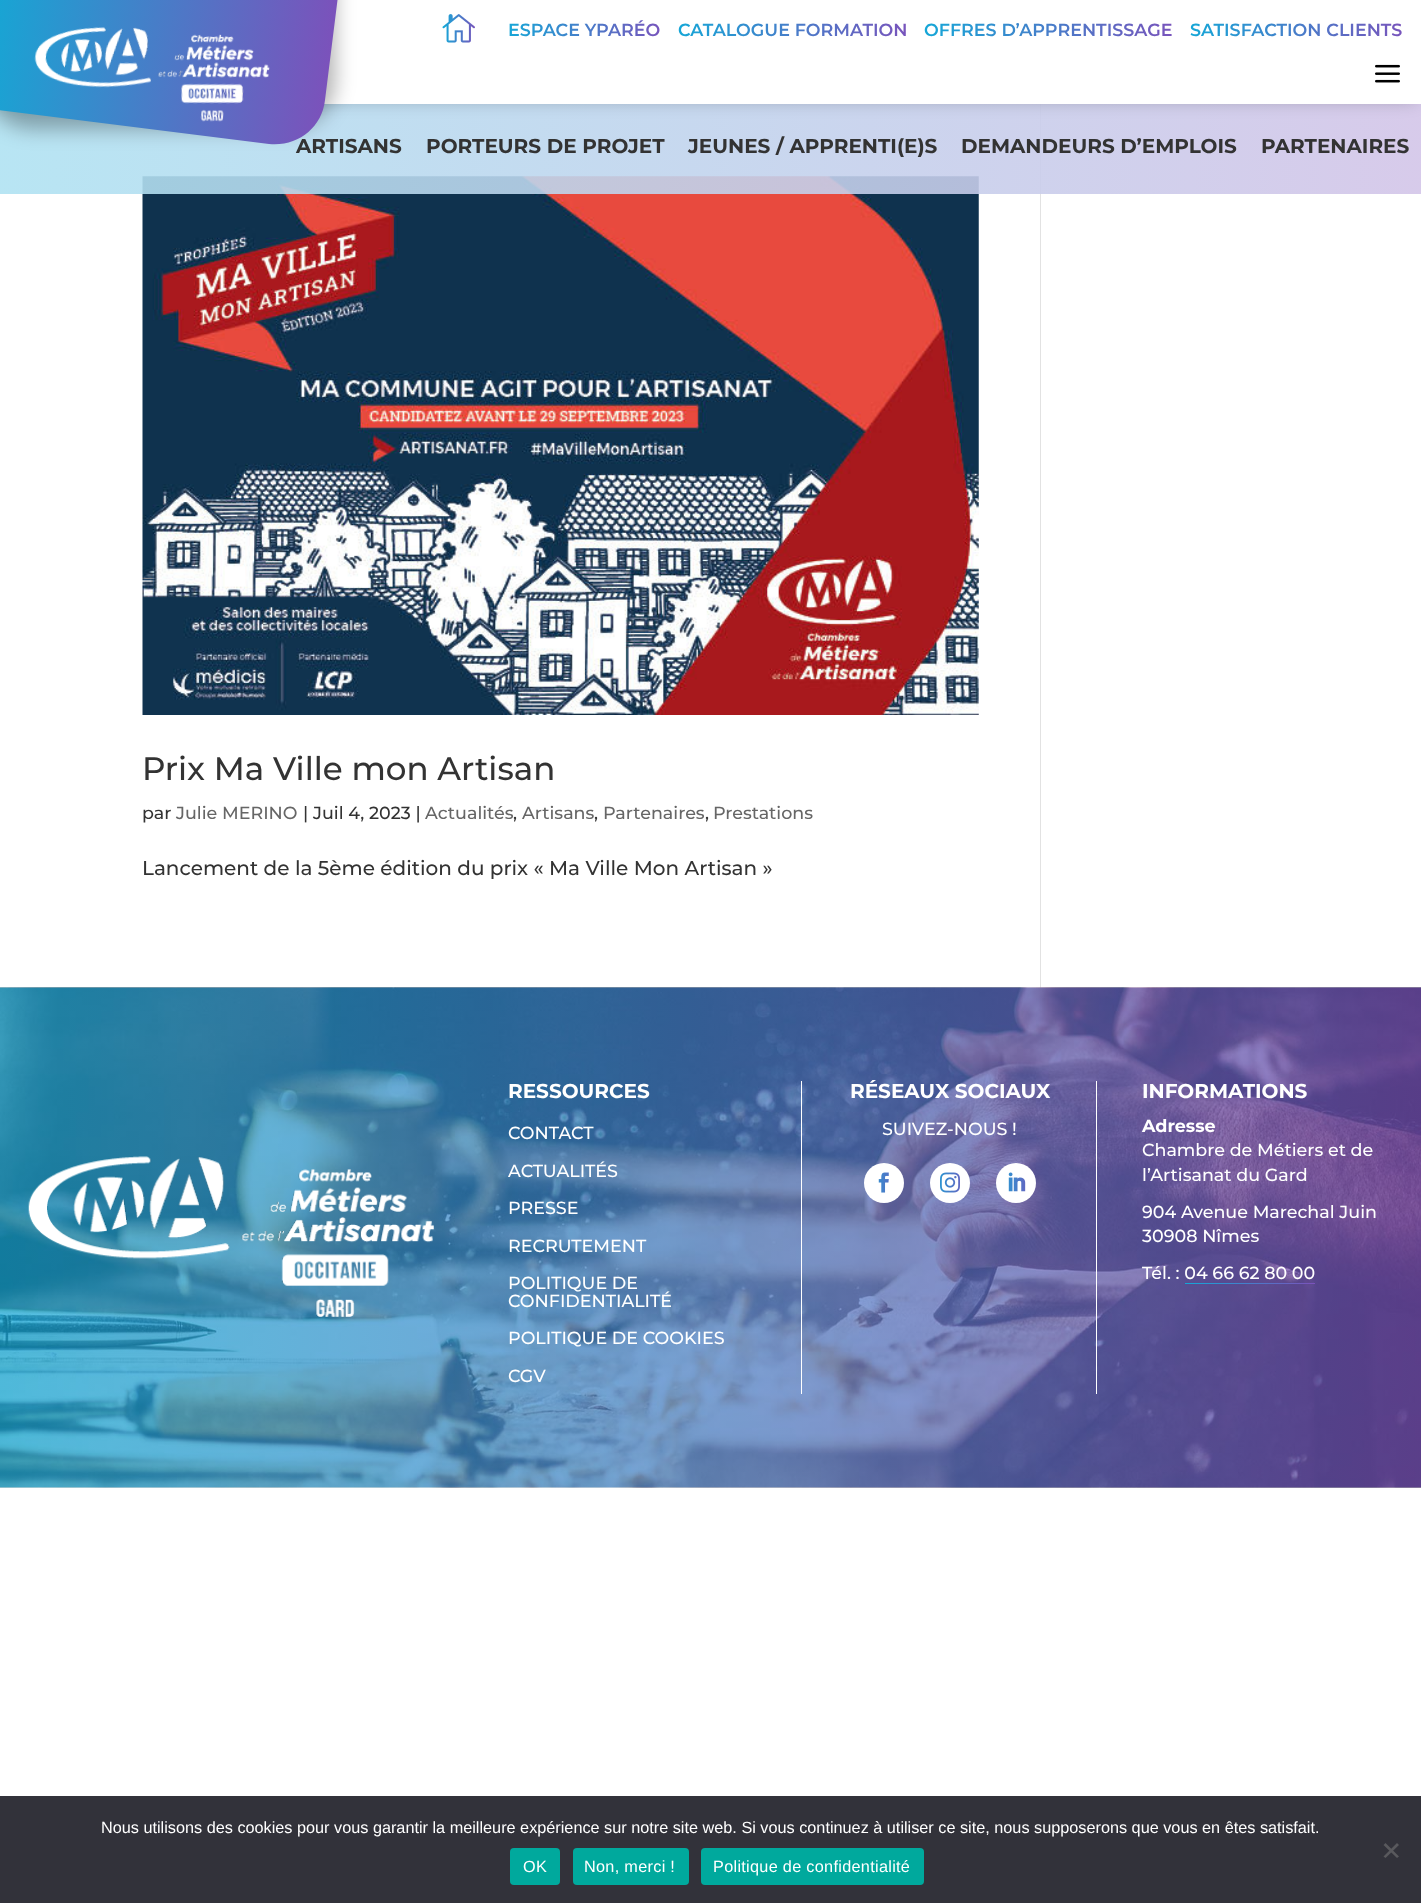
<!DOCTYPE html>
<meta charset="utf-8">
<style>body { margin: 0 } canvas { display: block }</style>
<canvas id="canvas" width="1421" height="1903"></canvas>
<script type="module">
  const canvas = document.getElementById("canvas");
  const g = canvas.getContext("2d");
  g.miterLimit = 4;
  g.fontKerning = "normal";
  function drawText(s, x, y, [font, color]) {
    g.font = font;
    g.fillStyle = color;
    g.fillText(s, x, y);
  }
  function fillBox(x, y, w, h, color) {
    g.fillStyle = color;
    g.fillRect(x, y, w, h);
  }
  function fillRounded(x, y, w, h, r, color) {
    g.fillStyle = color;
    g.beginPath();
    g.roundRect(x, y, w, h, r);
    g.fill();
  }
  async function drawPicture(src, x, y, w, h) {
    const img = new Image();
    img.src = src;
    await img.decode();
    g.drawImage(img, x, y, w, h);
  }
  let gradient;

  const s1 = ["100 20px 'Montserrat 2'", "#333333"];
  const s2 = ["100 32.5px Montserrat", "#333333"];
  const s3 = ["100 17.5px Montserrat", "#333333"];
  const s4 = ["100 17.5px Montserrat", "#666666"];
  const s5 = ["100 20px Montserrat", "#333333"];
  const s6 = ["100 20px 'Montserrat 2'", "#FFFFFF"];
  const s7 = ["100 17.5px Montserrat", "#FFFFFF"];
  const s8 = ["100 17.5px 'Montserrat 2'", "#FFFFFF"];
  const s9 = ["16.25px Liberation Sans", "#FFFFFF"];

  fillBox(0, 0, 1421, 1903, "#FFFFFF");
  await drawPicture("pic4.png", 142, 176, 837, 539);
  fillBox(1040, 104, 1, 884, "#E2E2E2");
  fillBox(142, 104, 899, 90, "rgba(255, 255, 255, 0.85)");
  gradient = g.createLinearGradient(0, 149, 1421, 149);
  gradient.addColorStop(0, "rgba(19, 169, 216, 0.3)");
  gradient.addColorStop(1, "rgba(123, 82, 187, 0.3)");
  g.fillStyle = gradient;
  g.fillRect(0, 104, 1421, 90);
  g.fillStyle = "rgba(0, 0, 0, 0.3)";
  g.filter = "blur(9px)";
  g.beginPath();
  g.rect(5, 5, 1411, 94);
  g.fill();
  g.filter = "none";
  fillBox(324, 0, 1097, 104, "#FFFFFF");
  g.fillStyle = "rgba(0, 0, 0, 0.3)";
  g.filter = "blur(10px)";
  g.beginPath();
  g.roundRect(-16, -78, 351, 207, 48);
  g.fill();
  g.filter = "none";
  drawText("ARTISANS", 296, 153, s1);
  gradient = g.createLinearGradient(-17, -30, 336, 13);
  gradient.addColorStop(0, "#13A9D5");
  gradient.addColorStop(1, "#7B52BB");
  g.fillStyle = gradient;
  g.beginPath();
  g.moveTo(0, -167);
  g.lineTo(353, -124);
  g.lineTo(325, 100);
  g.bezierCurveTo(322, 128, 297, 147, 269, 144);
  g.lineTo(-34, 106);
  g.closePath();
  g.fill();
  await drawPicture("pic1.png", 34, 27, 236, 95);
  await drawPicture("pic2.png", 442, 14, 33, 29);
  g.font = "100 17.5px 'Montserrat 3'";
  gradient = g.createLinearGradient(502, 30, 667, 30);
  gradient.addColorStop(0, "#13A9D8");
  gradient.addColorStop(1, "#7B52BB");
  g.fillStyle = gradient;
  g.fillText("ESPACE YPARÉO", 508, 36);
  gradient = g.createLinearGradient(671, 30, 913, 30);
  gradient.addColorStop(0, "#13A9D8");
  gradient.addColorStop(1, "#7B52BB");
  g.fillStyle = gradient;
  g.fillText("CATALOGUE FORMATION", 678, 36);
  gradient = g.createLinearGradient(918, 30, 1179, 30);
  gradient.addColorStop(0, "#13A9D8");
  gradient.addColorStop(1, "#7B52BB");
  g.fillStyle = gradient;
  g.fillText("OFFRES D’APPRENTISSAGE", 924, 36);
  gradient = g.createLinearGradient(1184, 30, 1409, 30);
  gradient.addColorStop(0, "#13A9D8");
  gradient.addColorStop(1, "#7B52BB");
  g.fillStyle = gradient;
  g.fillText("SATISFACTION CLIENTS", 1190, 36);
  await drawPicture("pic3.png", 1375, 64, 25, 19);
  drawText("PORTEURS DE PROJET", 426, 153, s1);
  drawText("JEUNES / APPRENTI(E)S", 688, 153, s1);
  drawText("DEMANDEURS D’EMPLOIS", 961, 153, s1);
  drawText("PARTENAIRES", 1261, 153, s1);
  drawText("Prix Ma Ville mon Artisan", 142, 780, s2);
  drawText("par", 142, 819, s3);
  drawText("Julie MERINO", 176, 819, s4);
  drawText("| Juil 4, 2023 |", 303, 819, s3);
  drawText("Actualités", 425, 819, s4);
  drawText(",", 513, 819, s3);
  drawText("Artisans", 522, 819, s4);
  drawText(",", 594, 819, s3);
  drawText("Partenaires", 603, 819, s4);
  drawText(",", 705, 819, s3);
  drawText("Prestations", 713, 819, s4);
  drawText("Lancement de la 5ème édition du prix « Ma Ville Mon Artisan »", 142, 875, s5);
  await drawPicture("pic5.png", 0, 987, 1421, 501);
  await drawPicture("pic6.png", 28, 1156, 406, 161);
  fillBox(801, 1081, 1, 313, "#FFFFFF");
  drawText("RESSOURCES", 508, 1098, s6);
  drawText("CONTACT", 508, 1139, s7);
  drawText("ACTUALITÉS", 508, 1177, s7);
  drawText("PRESSE", 508, 1214, s7);
  drawText("RECRUTEMENT", 508, 1252, s7);
  drawText("POLITIQUE DE", 508, 1289, s7);
  drawText("CONFIDENTIALITÉ", 508, 1307, s7);
  drawText("POLITIQUE DE COOKIES", 508, 1344, s7);
  drawText("CGV", 508, 1382, s7);
  fillBox(1096, 1081, 1, 313, "#FFFFFF");
  drawText("RÉSEAUX SOCIAUX", 850, 1098, s6);
  drawText("SUIVEZ-NOUS !", 882, 1135, s7);
  g.beginPath();
  g.arc(884, 1183, 20, 0, Math.PI * 2);
  g.fill();
  await drawPicture("pic7.png", 878, 1172, 11, 21);
  g.beginPath();
  g.arc(950, 1183, 20, 0, Math.PI * 2);
  g.fill();
  await drawPicture("pic8.png", 940, 1172, 20, 21);
  g.beginPath();
  g.arc(1016, 1183, 20, 0, Math.PI * 2);
  g.fill();
  await drawPicture("pic9.png", 1008, 1172, 18, 20);
  drawText("INFORMATIONS", 1142, 1098, s6);
  drawText("Adresse", 1142, 1132, s8);
  drawText("Chambre de Métiers et de", 1142, 1156, s7);
  drawText("l’Artisanat du Gard", 1142, 1181, s7);
  drawText("904 Avenue Marechal Juin", 1142, 1218, s7);
  drawText("30908 Nîmes", 1142, 1242, s7);
  drawText("Tél. : 04 66 62 80 00", 1142, 1279, s7);
  gradient = g.createLinearGradient(925, 1283, 1315, 1283);
  gradient.addColorStop(0, "#13A9D8");
  gradient.addColorStop(0.33, "#7B52BB");
  gradient.addColorStop(0.66, "#13A9D8");
  gradient.addColorStop(1, "#7B52BB");
  g.fillStyle = gradient;
  g.fillRect(1185, 1283, 130, 1);
  fillBox(0, 1796, 1421, 107, "#32323A");
  drawText("Nous utilisons des cookies pour vous garantir la meilleure expérience sur notre site web. Si vous continuez à utiliser ce site, nous supposerons que vous en êtes satisfait.", 101, 1833, s9);
  g.fillStyle = "#59595D";
  g.beginPath();
  g.moveTo(1397, 1843);
  g.lineTo(1399, 1845);
  g.lineTo(1385.5, 1858);
  g.lineTo(1383.5, 1856.5);
  g.closePath();
  g.fill();
  g.beginPath();
  g.moveTo(1383.5, 1845);
  g.lineTo(1385.5, 1843);
  g.lineTo(1399, 1856.5);
  g.lineTo(1397, 1858);
  g.closePath();
  g.fill();
  fillRounded(510, 1848, 50, 37, 4, "#00A99D");
  g.letterSpacing = "0.3px";
  drawText("OK", 523, 1872, s9);
  fillRounded(573, 1848, 116, 37, 4, "#00A99D");
  drawText("Non, merci !", 584, 1872, s9);
  fillRounded(701, 1848, 223, 37, 4, "#00A99D");
  drawText("Politique de confidentialité", 713, 1872, s9);
</script>
